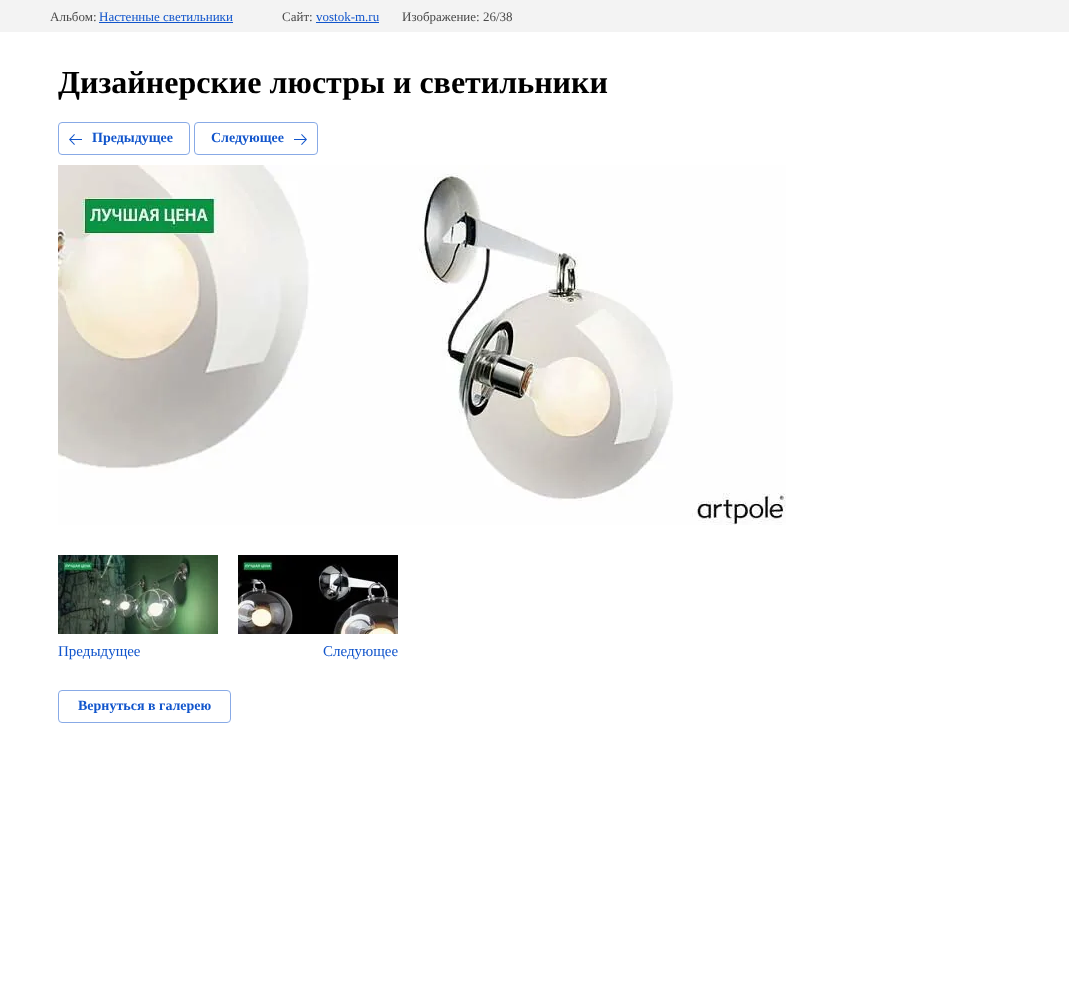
<!DOCTYPE html>
<meta charset="utf-8">
<style>body { margin: 0 } canvas { display: block }</style>
<canvas id="canvas" width="1069" height="1006"></canvas>
<script type="module">
  const canvas = document.getElementById("canvas");
  const g = canvas.getContext("2d");
  g.miterLimit = 4;
  g.fontKerning = "normal";
  function drawText(s, x, y, [font, color]) {
    g.font = font;
    g.fillStyle = color;
    g.fillText(s, x, y);
  }
  function fillBox(x, y, w, h, color) {
    g.fillStyle = color;
    g.fillRect(x, y, w, h);
  }
  async function drawPicture(src, x, y, w, h) {
    const img = new Image();
    img.src = src;
    await img.decode();
    g.drawImage(img, x, y, w, h);
  }

  const s1 = ["13px Liberation Serif", "#484848"];
  const s2 = ["13px Liberation Serif", "#1155CC"];
  const s3 = ["bold 32px Liberation Serif", "#000000"];
  const s4 = ["bold 14px Liberation Serif", "#1155CC"];
  const s5 = ["15px Liberation Serif", "#1155CC"];

  fillBox(0, 0, 1069, 1006, "#FFFFFF");
  fillBox(0, 0, 1069, 32, "#F3F3F3");
  drawText("Альбом:", 50, 21, s1);
  drawText("Настенные светильники", 99, 21, s2);
  fillBox(99, 22, 134, 1, "#1155CC");
  drawText("Сайт:", 282, 21, s1);
  drawText("vostok-m.ru", 316, 21, s2);
  fillBox(316, 22, 63, 1, "#1155CC");
  drawText("Изображение: 26/38", 402, 21, s1);
  drawText("Дизайнерские люстры и светильники", 58, 93, s3);
  g.beginPath();
  g.roundRect(58.5, 122.5, 131, 32, 3.5);
  g.strokeStyle = "#88AAE6";
  g.stroke();
  await drawPicture("pic1.png", 69, 134, 13, 11);
  drawText("Предыдущее", 92, 142, s4);
  g.beginPath();
  g.roundRect(194.5, 122.5, 123, 32, 3.5);
  g.stroke();
  drawText("Следующее", 211, 142, s4);
  await drawPicture("pic2.png", 294, 134, 13, 11);
  await drawPicture("pic3.png", 58, 165, 728, 360);
  await drawPicture("pic4.png", 58, 555, 160, 79);
  drawText("Предыдущее", 58, 656, s5);
  await drawPicture("pic5.png", 238, 555, 160, 79);
  drawText("Следующее", 323, 656, s5);
  g.beginPath();
  g.roundRect(58.5, 690.5, 172, 32, 3.5);
  g.stroke();
  drawText("Вернуться в галерею", 78, 710, s4);
</script>
